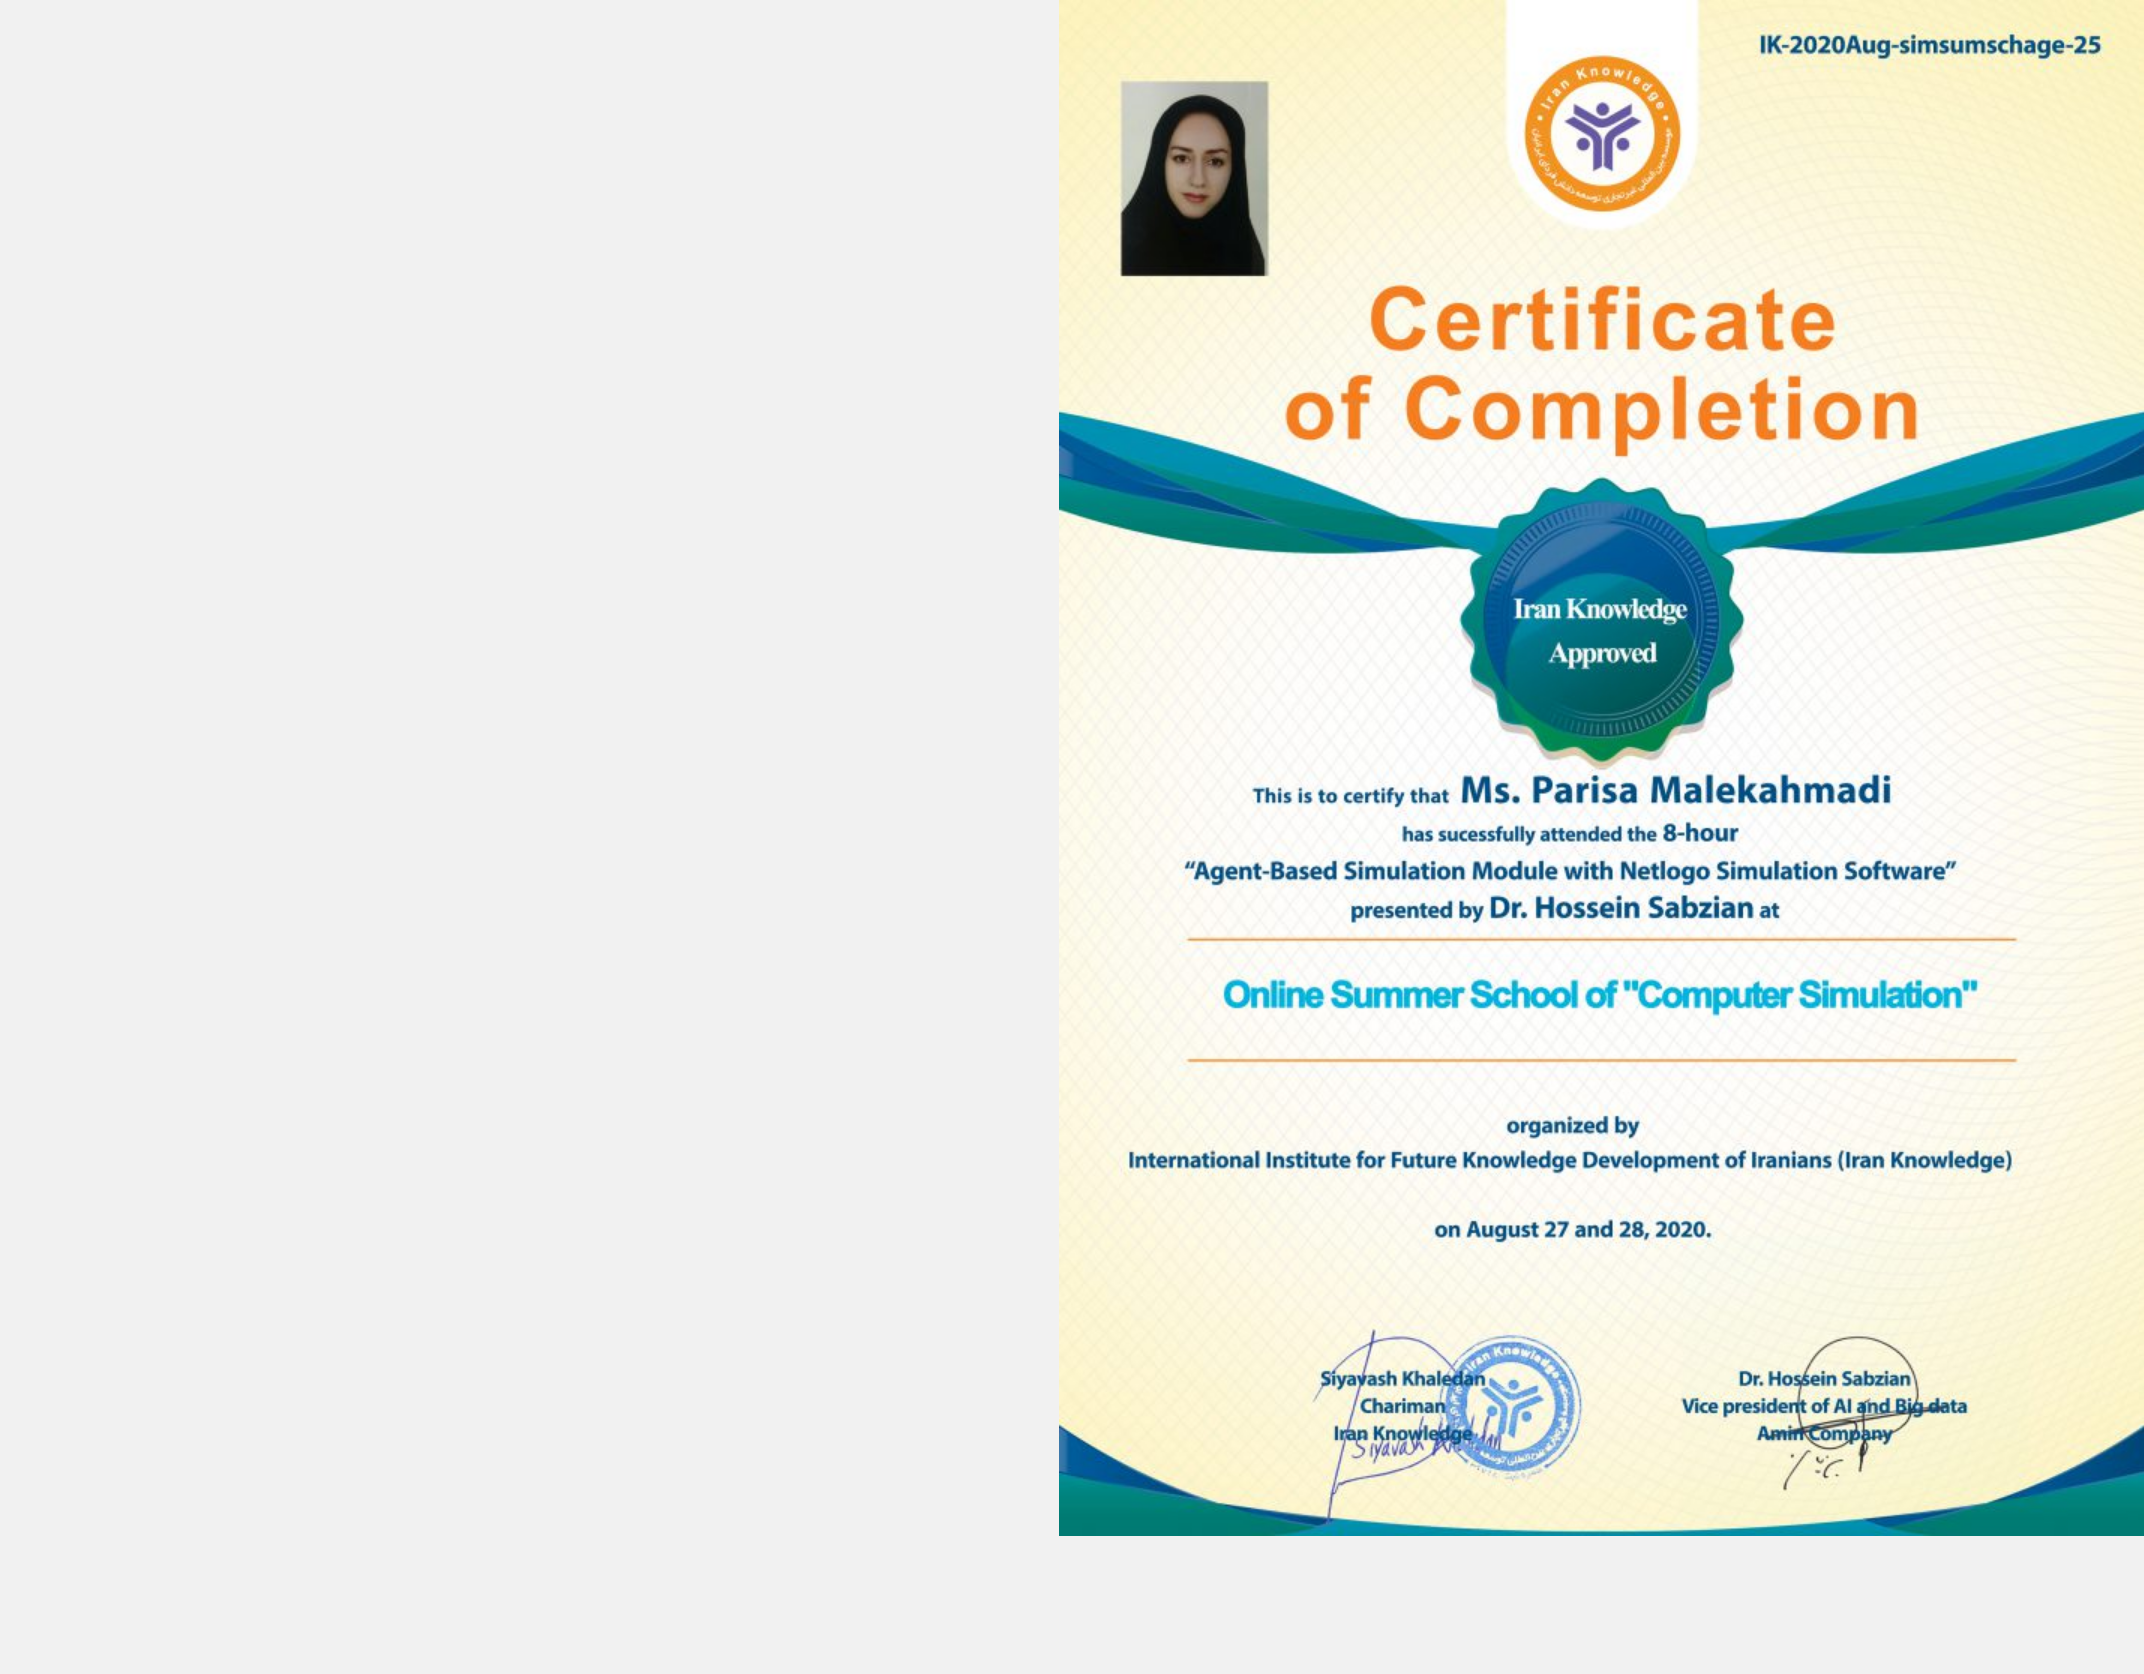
<!DOCTYPE html>
<meta charset="utf-8">
<style>body { margin: 0 } canvas { display: block }</style>
<canvas id="canvas" width="2144" height="1674"></canvas>
<script type="module">
  const canvas = document.getElementById("canvas");
  const g = canvas.getContext("2d");
  g.miterLimit = 4;
  g.fontKerning = "normal";
  function fillBox(x, y, w, h, color) {
    g.fillStyle = color;
    g.fillRect(x, y, w, h);
  }
  async function drawPicture(src, x, y, w, h) {
    const img = new Image();
    img.src = src;
    await img.decode();
    g.drawImage(img, x, y, w, h);
  }

  fillBox(0, 0, 2144, 1674, "#F1F1F1");
  await drawPicture("pic1.png", 1059, 0, 1085, 1536);
</script>
